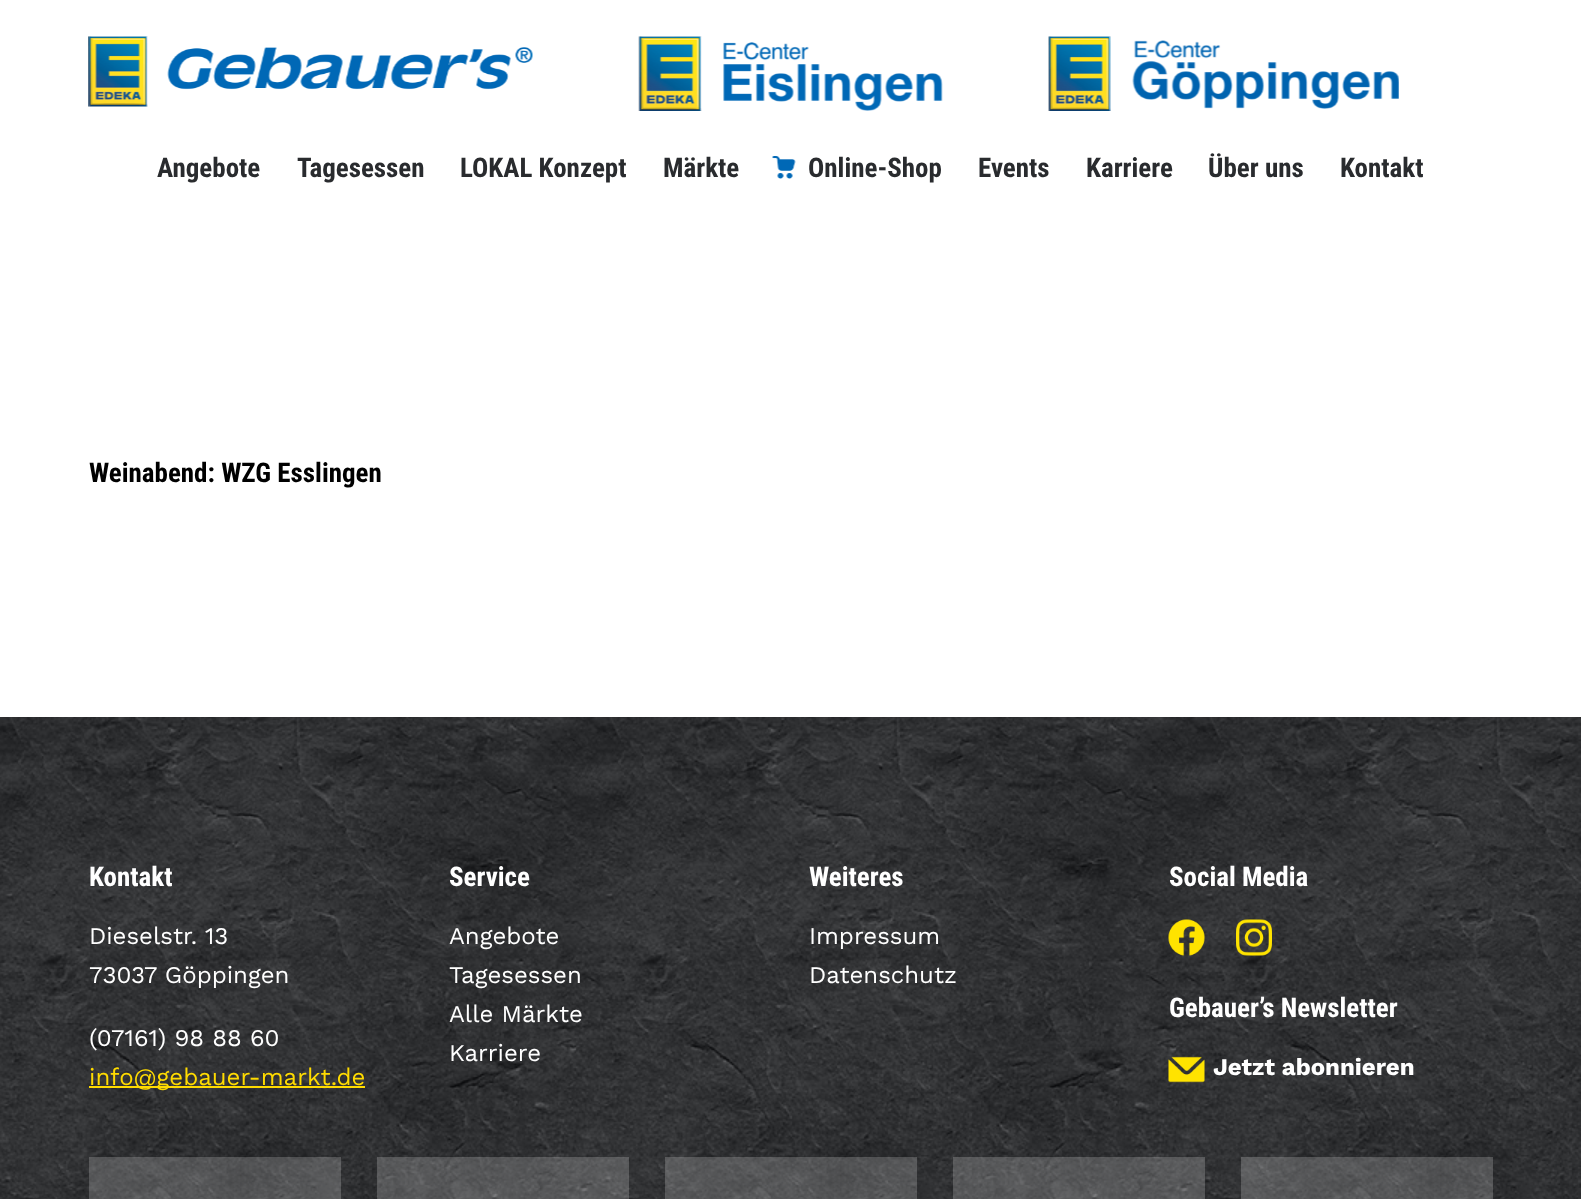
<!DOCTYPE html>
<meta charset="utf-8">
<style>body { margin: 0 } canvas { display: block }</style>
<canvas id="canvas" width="1581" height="1199"></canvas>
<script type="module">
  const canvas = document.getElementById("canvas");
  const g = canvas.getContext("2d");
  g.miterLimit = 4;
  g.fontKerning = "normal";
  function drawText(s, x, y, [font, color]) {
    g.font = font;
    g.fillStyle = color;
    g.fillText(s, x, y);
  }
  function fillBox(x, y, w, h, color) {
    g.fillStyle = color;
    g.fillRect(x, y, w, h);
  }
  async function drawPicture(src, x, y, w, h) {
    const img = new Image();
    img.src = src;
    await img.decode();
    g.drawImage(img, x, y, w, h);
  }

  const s1 = ["bold 27px Roboto Condensed", "#292B2E"];
  const s2 = ["bold 27px Roboto Condensed", "#000000"];
  const s3 = ["bold 27px Roboto Condensed", "#FFFFFF"];
  const s4 = ["24px Work Sans", "#FFFFFF"];
  const s5 = ["24px Work Sans", "#FFDB00"];
  const s6 = ["bold 24px Work Sans", "#FFFFFF"];

  fillBox(0, 0, 1581, 1199, "#FFFFFF");
  await drawPicture("pic1.png", 88, 36, 445, 71);
  await drawPicture("pic2.png", 638, 36, 305, 75);
  await drawPicture("pic3.png", 1048, 36, 351, 75);
  drawText("Angebote", 157, 177, s1);
  drawText("Tagesessen", 297, 177, s1);
  drawText("LOKAL Konzept", 460, 177, s1);
  drawText("Märkte", 663, 177, s1);
  await drawPicture("pic4.png", 772, 156, 24, 23);
  drawText("Online-Shop", 808, 177, s1);
  drawText("Events", 978, 177, s1);
  drawText("Karriere", 1086, 177, s1);
  drawText("Über uns", 1208, 177, s1);
  drawText("Kontakt", 1340, 177, s1);
  drawText("Weinabend: WZG Esslingen", 89, 482, s2);
  await drawPicture("pic5.png", 0, 717, 1581, 482);
  drawText("Kontakt", 89, 886, s3);
  drawText("Dieselstr. 13", 89, 944, s4);
  drawText("73037 Göppingen", 89, 983, s4);
  drawText("(07161) 98 88 60", 89, 1046, s4);
  fillBox(89, 1086, 276, 2, "#FFDB00");
  drawText("info@gebauer-markt.de", 89, 1085, s5);
  drawText("Service", 449, 886, s3);
  drawText("Angebote", 449, 944, s4);
  drawText("Tagesessen", 449, 983, s4);
  drawText("Alle Märkte", 449, 1022, s4);
  drawText("Karriere", 449, 1061, s4);
  drawText("Weiteres", 809, 886, s3);
  drawText("Impressum", 809, 944, s4);
  drawText("Datenschutz", 809, 983, s4);
  drawText("Social Media", 1169, 886, s3);
  await drawPicture("pic6.png", 1168, 919, 37, 37);
  await drawPicture("pic7.png", 1236, 919, 36, 37);
  drawText("Gebauer’s Newsletter", 1169, 1017, s3);
  await drawPicture("pic8.png", 1168, 1056, 37, 27);
  drawText("Jetzt abonnieren", 1213, 1075, s6);
  fillBox(89, 1157, 252, 42, "rgba(255, 255, 255, 0.2)");
  fillBox(377, 1157, 252, 42, "rgba(255, 255, 255, 0.2)");
  fillBox(665, 1157, 252, 42, "rgba(255, 255, 255, 0.2)");
  fillBox(953, 1157, 252, 42, "rgba(255, 255, 255, 0.2)");
  fillBox(1241, 1157, 252, 42, "rgba(255, 255, 255, 0.2)");
</script>
